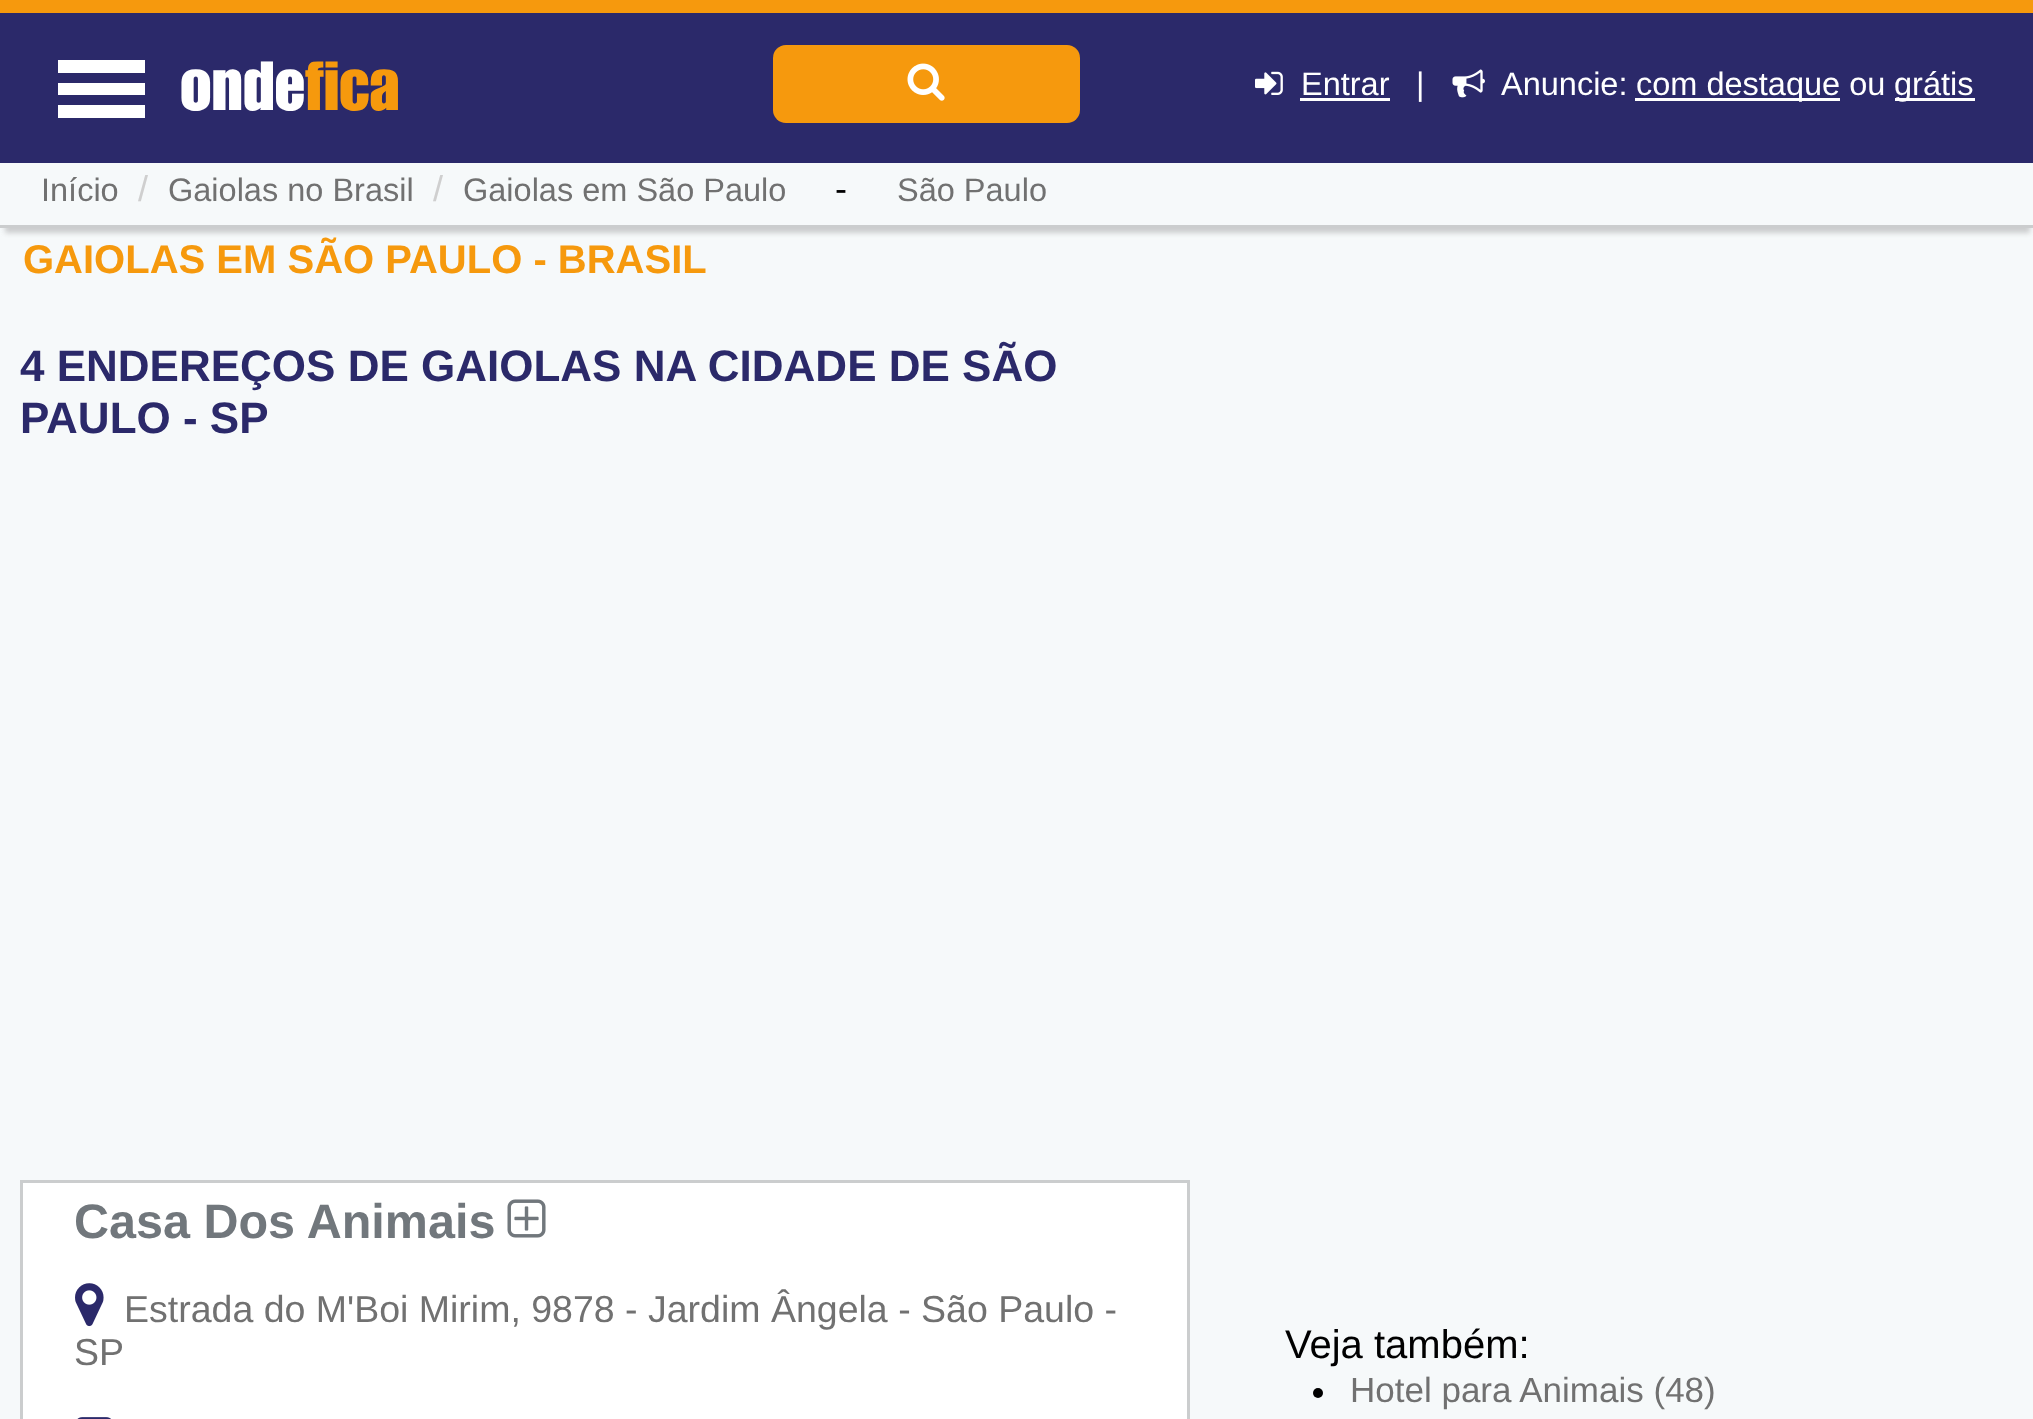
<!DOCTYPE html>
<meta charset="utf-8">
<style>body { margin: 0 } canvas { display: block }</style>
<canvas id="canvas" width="2033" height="1419"></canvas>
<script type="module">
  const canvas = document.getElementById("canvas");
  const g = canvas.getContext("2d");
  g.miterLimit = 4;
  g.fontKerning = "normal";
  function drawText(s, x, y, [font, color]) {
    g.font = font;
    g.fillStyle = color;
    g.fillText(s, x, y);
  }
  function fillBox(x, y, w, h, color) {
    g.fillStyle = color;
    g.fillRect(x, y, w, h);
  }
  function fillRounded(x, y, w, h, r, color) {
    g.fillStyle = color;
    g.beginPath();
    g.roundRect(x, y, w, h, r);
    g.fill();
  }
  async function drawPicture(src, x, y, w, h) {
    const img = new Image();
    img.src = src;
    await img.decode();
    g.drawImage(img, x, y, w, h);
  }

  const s1 = ["500 68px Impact", "#FFFFFF"];
  const s2 = ["500 68px Impact", "#F6990D"];
  const s3 = ["32.5px Liberation Sans", "#FFFFFF"];
  const s4 = ["32.5px Liberation Sans", "#717171"];
  const s5 = ["36px Liberation Sans", "#CFCFCF"];
  const s6 = ["36px Liberation Sans", "#000000"];
  const s7 = ["bold 40px Liberation Sans", "#F6990D"];
  const s8 = ["bold 44px Liberation Sans", "#2B296A"];
  const s9 = ["bold 48.5px Liberation Sans", "#71777C"];
  const s10 = ["37.5px Liberation Sans", "#717171"];
  const s11 = ["40px Liberation Sans", "#000000"];
  const s12 = ["35px Liberation Sans", "#717171"];

  fillBox(0, 0, 2033, 1419, "#F6F9FA");
  fillBox(0, 13, 2033, 150, "#2B296A");
  fillBox(0, 0, 2033, 13, "#F6990D");
  fillBox(58, 60, 87, 13, "#FFFFFF");
  fillBox(58, 83, 87, 12, "#FFFFFF");
  fillBox(58, 105, 87, 13, "#FFFFFF");
  drawText("onde", 180, 110, s1);
  drawText("fica", 305, 110, s2);
  fillRounded(773, 45, 307, 78, 13, "#F6990D");
  await drawPicture("pic1.png", 907, 63, 38, 38);
  await drawPicture("pic2.png", 1255, 71, 28, 24);
  drawText("Entrar", 1301, 95, s3);
  fillBox(1300, 98, 90, 3, "#FFFFFF");
  drawText("|", 1416, 95, s3);
  await drawPicture("pic3.png", 1452, 69, 33, 29);
  drawText("Anuncie:", 1501, 95, s3);
  fillBox(1635, 98, 205, 3, "#FFFFFF");
  drawText("com destaque ou", 1636, 95, s3);
  fillBox(1895, 98, 80, 3, "#FFFFFF");
  drawText("grátis", 1894, 95, s3);
  g.save();
  g.beginPath();
  g.rect(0, 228, 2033, 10);
  g.clip();
  g.fillStyle = "#CBCDCE";
  g.filter = "blur(2.5px)";
  g.beginPath();
  g.rect(5, 178, 2025, 55);
  g.fill();
  g.filter = "none";
  g.restore();
  fillBox(0, 225, 2033, 3, "#CBCDCE");
  drawText("Início", 41, 201, s4);
  drawText("/", 138, 201, s5);
  drawText("Gaiolas no Brasil", 168, 201, s4);
  drawText("/", 433, 201, s5);
  drawText("Gaiolas em São Paulo", 463, 201, s4);
  drawText("-", 835, 201, s6);
  drawText("São Paulo", 897, 201, s4);
  drawText("GAIOLAS EM SÃO PAULO - BRASIL", 23, 273, s7);
  drawText("4 ENDEREÇOS DE GAIOLAS NA CIDADE DE SÃO", 20, 381, s8);
  drawText("PAULO - SP", 20, 433, s8);
  g.fillStyle = "#FFFFFF";
  g.beginPath();
  g.rect(21.5, 1181.5, 1167, 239);
  g.fill();
  g.strokeStyle = "#CBCDCE";
  g.lineWidth = 3;
  g.stroke();
  drawText("Casa Dos Animais", 74, 1238, s9);
  await drawPicture("pic4.png", 507, 1199, 39, 39);
  await drawPicture("pic5.png", 75, 1283, 29, 44);
  drawText("Estrada do M'Boi Mirim, 9878 - Jardim Ângela - São Paulo -", 124, 1322, s10);
  drawText("SP", 74, 1365, s10);
  await drawPicture("pic6.png", 77, 1417, 34, 2);
  drawText("Veja também:", 1285, 1358, s11);
  g.beginPath();
  g.arc(1318, 1393, 5, 0, Math.PI * 2);
  g.fill();
  drawText("Hotel para Animais (48)", 1350, 1402, s12);
</script>
